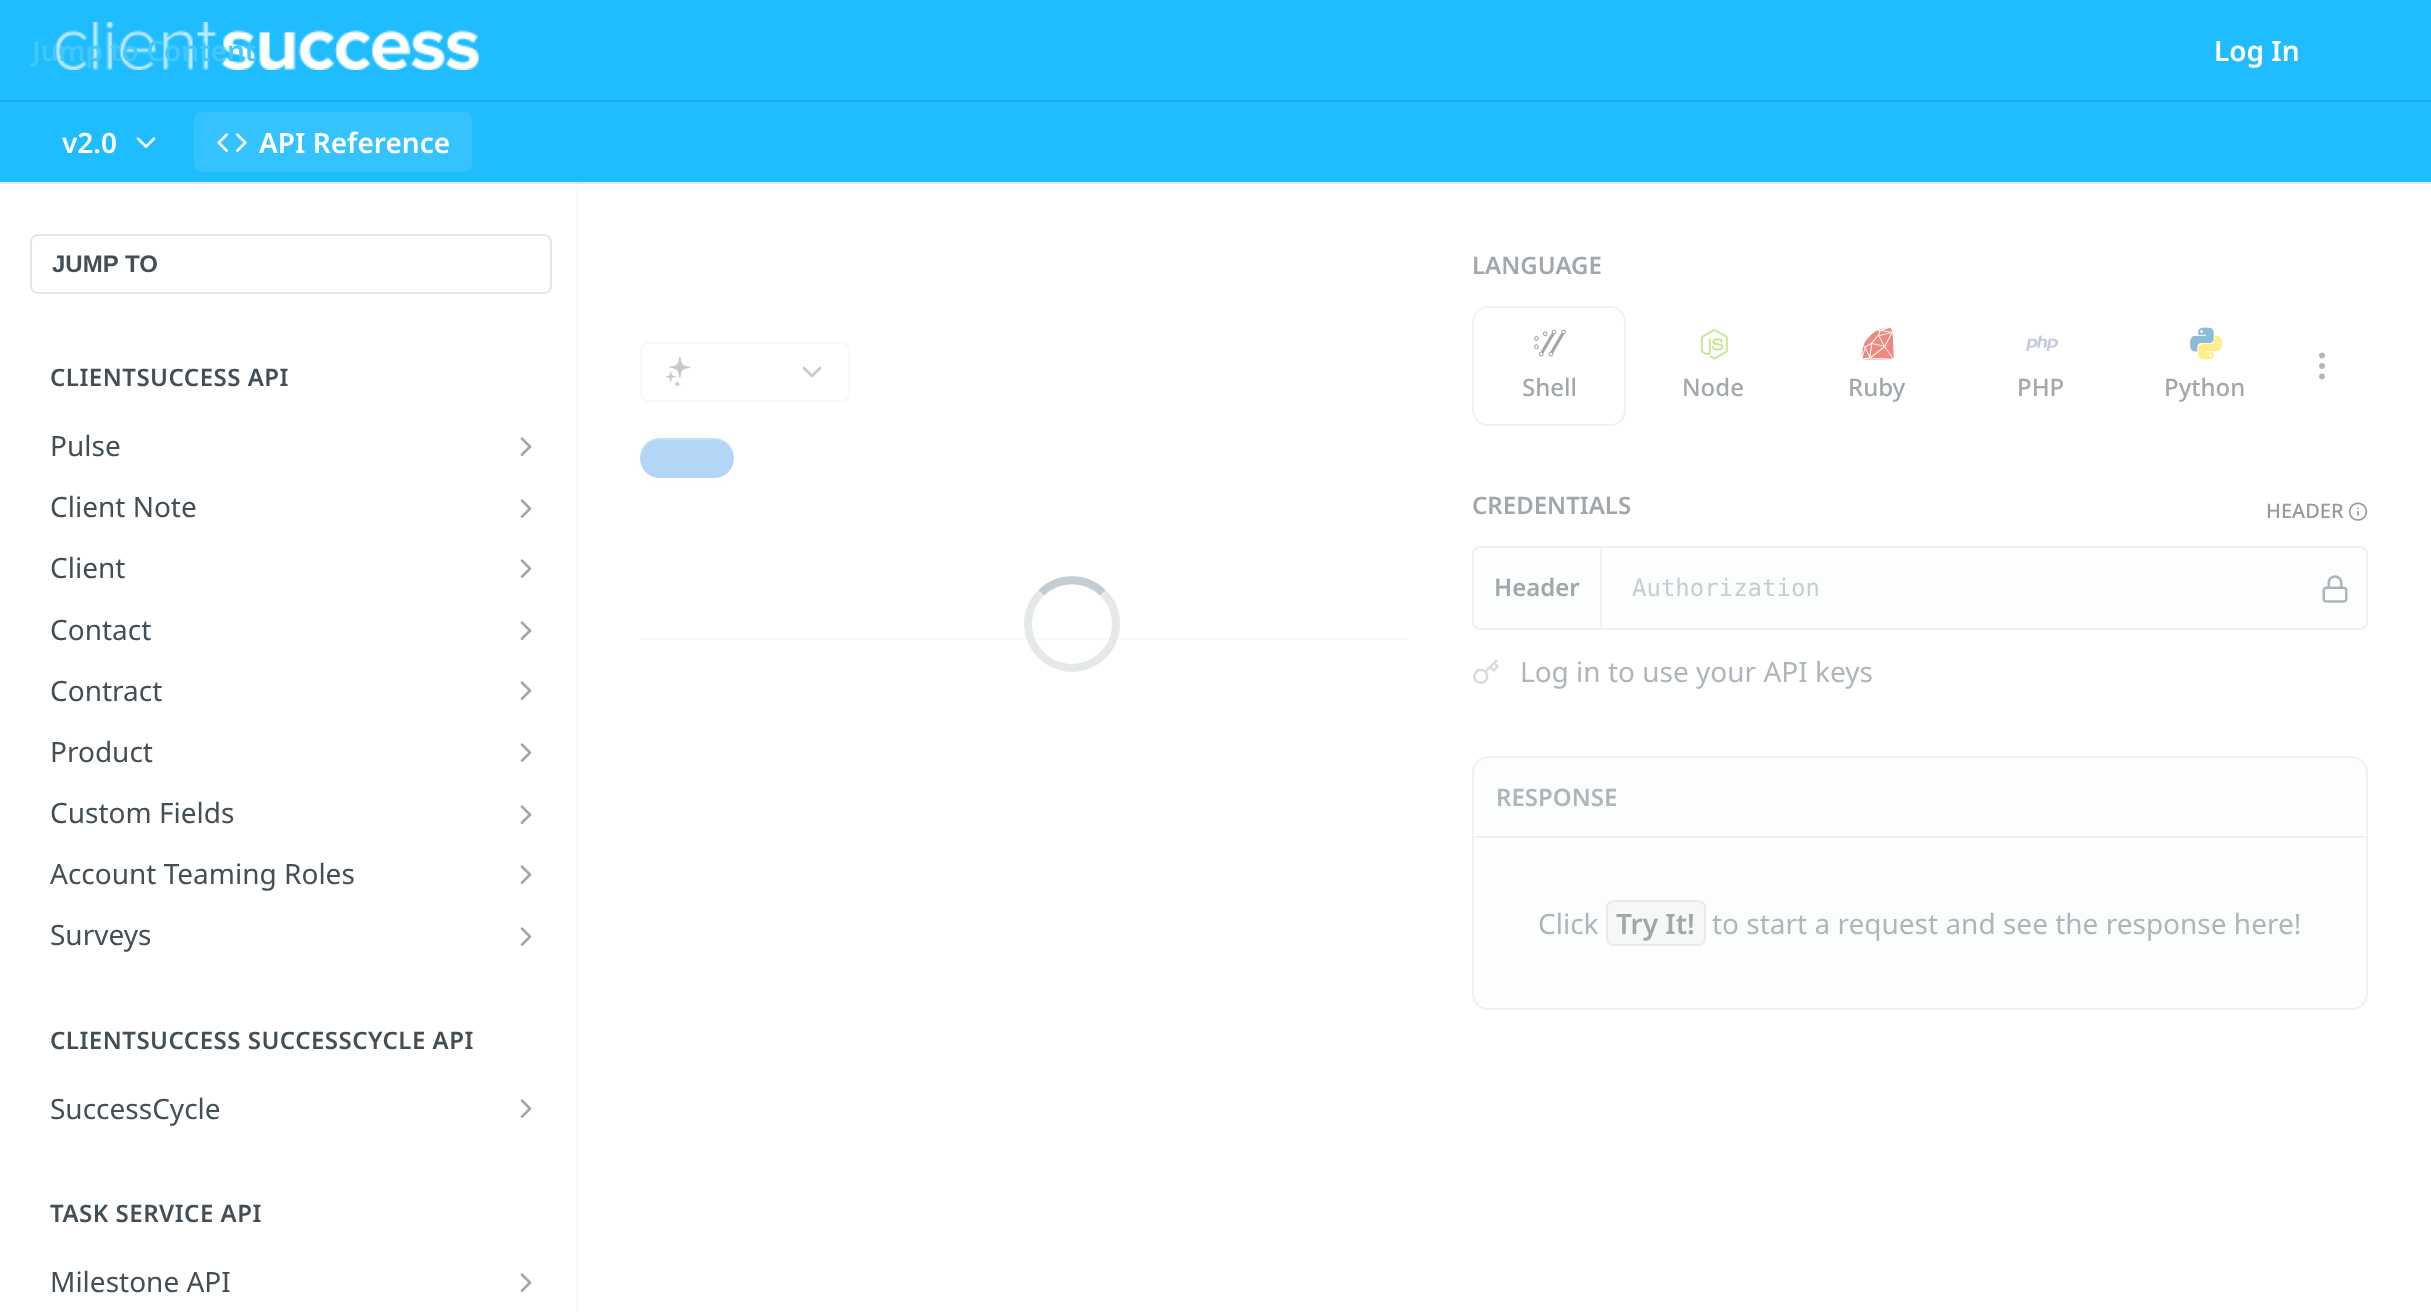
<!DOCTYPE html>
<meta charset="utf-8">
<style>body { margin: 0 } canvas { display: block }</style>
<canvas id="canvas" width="2431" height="1312"></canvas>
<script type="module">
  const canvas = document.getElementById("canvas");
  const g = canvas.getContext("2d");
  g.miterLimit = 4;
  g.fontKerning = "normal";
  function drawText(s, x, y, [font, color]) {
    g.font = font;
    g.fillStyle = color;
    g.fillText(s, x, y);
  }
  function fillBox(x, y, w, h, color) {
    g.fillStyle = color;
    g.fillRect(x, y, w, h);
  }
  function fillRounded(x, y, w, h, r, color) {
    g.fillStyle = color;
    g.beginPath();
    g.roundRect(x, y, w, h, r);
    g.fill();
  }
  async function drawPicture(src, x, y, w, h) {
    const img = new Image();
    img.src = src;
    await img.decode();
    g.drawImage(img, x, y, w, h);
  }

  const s1 = ["600 28px Noto Sans", "#43C7FF"];
  const s2 = ["600 28px Noto Sans", "#FFFFFF"];
  const s3 = ["bold 24px Liberation Sans", "#434E56"];
  const s4 = ["600 24px Noto Sans", "#434E56"];
  const s5 = ["28px Noto Sans", "#434E56"];
  const s6 = ["600 24px Noto Sans", "#A1A7AB"];
  const s7 = ["500 24px Noto Sans", "#A1A7AB"];
  const s8 = ["500 20px Noto Sans", "#959A9D"];
  const s9 = ["24px DejaVu Sans Mono", "#C6CDD3"];
  const s10 = ["28px Noto Sans", "#AEB6BC"];
  const s11 = ["600 24px Noto Sans", "#AEB6BC"];
  const s12 = ["600 28px Noto Sans", "#A1A7AB"];

  fillBox(0, 0, 2431, 1312, "#FFFFFF");
  fillBox(576, 182, 2, 1130, "#E6E6E6");
  fillBox(640, 638, 768, 2, "#E6E6E6");
  g.beginPath();
  g.roundRect(641, 343, 208, 58, 7);
  g.strokeStyle = "#E6E6E6";
  g.lineWidth = 2;
  g.stroke();
  await drawPicture("pic5.png", 665, 356, 26, 32);
  g.beginPath();
  g.moveTo(804, 368);
  g.lineTo(812, 376);
  g.lineTo(820, 368);
  g.strokeStyle = "#434E56";
  g.lineWidth = 2.7;
  g.lineCap = "round";
  g.lineJoin = "round";
  g.stroke();
  g.fillStyle = "rgba(0, 0, 0, 0.05)";
  g.filter = "blur(2px)";
  g.beginPath();
  g.roundRect(640, 440, 94, 40, 20);
  g.fill();
  g.filter = "none";
  fillRounded(640, 438, 94, 40, 20, "#0074E1");
  g.fillStyle = "rgba(255, 255, 255, 0.2)";
  g.beginPath();
  g.moveTo(660, 440);
  g.lineTo(714, 440);
  g.bezierCurveTo(725, 440, 733, 448, 734, 459);
  g.lineTo(734, 458);
  g.bezierCurveTo(734, 447, 725, 438, 714, 438);
  g.lineTo(660, 438);
  g.bezierCurveTo(649, 438, 640, 447, 640, 458);
  g.lineTo(640, 459);
  g.bezierCurveTo(641, 448, 649, 440, 660, 440);
  g.closePath();
  g.fill();
  fillBox(576, 182, 832, 1130, "rgba(255, 255, 255, 0.7)");
  fillBox(0, 182, 2431, 2, "rgba(0, 0, 0, 0.1)");
  fillBox(0, 0, 2431, 182, "#1FBCFF");
  fillBox(0, 100, 2431, 2, "#1CA9E6");
  await drawPicture("pic1.png", 55, 22, 424, 48);
  drawText("Jump to Content", 32, 61, s1);
  drawText("Log In", 2214, 61, s2);
  drawText("v2.0", 62, 153, s2);
  await drawPicture("pic2.png", 136, 137, 20, 11);
  fillRounded(194, 112, 278, 60, 8, "#35C3FF");
  await drawPicture("pic3.png", 217, 133, 30, 19);
  drawText("API Reference", 259, 153, s2);
  g.beginPath();
  g.roundRect(31, 235, 520, 58, 7);
  g.strokeStyle = "#E6E6E6";
  g.lineWidth = 2;
  g.lineJoin = "miter";
  g.stroke();
  drawText("JUMP TO", 52, 272, s3);
  g.letterSpacing = "0.5px";
  drawText("CLIENTSUCCESS API", 50, 386, s4);
  g.letterSpacing = "0px";
  drawText("Pulse", 50, 456, s5);
  await drawPicture("pic4.png", 520, 437, 12, 19);
  drawText("Client Note", 50, 517, s5);
  await drawPicture("pic4.png", 520, 499, 12, 19);
  drawText("Client", 50, 578, s5);
  await drawPicture("pic4.png", 520, 559, 12, 19);
  drawText("Contact", 50, 640, s5);
  await drawPicture("pic4.png", 520, 621, 12, 19);
  drawText("Contract", 50, 701, s5);
  await drawPicture("pic4.png", 520, 681, 12, 19);
  drawText("Product", 50, 762, s5);
  await drawPicture("pic4.png", 520, 743, 12, 19);
  drawText("Custom Fields", 50, 823, s5);
  await drawPicture("pic4.png", 520, 805, 12, 19);
  drawText("Account Teaming Roles", 50, 884, s5);
  await drawPicture("pic4.png", 520, 865, 12, 19);
  drawText("Surveys", 50, 945, s5);
  await drawPicture("pic4.png", 520, 927, 12, 19);
  g.letterSpacing = "0.5px";
  drawText("CLIENTSUCCESS SUCCESSCYCLE API", 50, 1049, s4);
  g.letterSpacing = "0px";
  drawText("SuccessCycle", 50, 1119, s5);
  await drawPicture("pic4.png", 520, 1099, 12, 19);
  g.letterSpacing = "0.5px";
  drawText("TASK SERVICE API", 50, 1222, s4);
  g.letterSpacing = "0px";
  drawText("Milestone API", 50, 1292, s5);
  await drawPicture("pic4.png", 520, 1273, 12, 19);
  g.beginPath();
  g.moveTo(1041, 593);
  g.bezierCurveTo(1058, 576, 1086, 576, 1103, 593);
  g.strokeStyle = "#C5CDD3";
  g.lineWidth = 8;
  g.lineCap = "butt";
  g.stroke();
  g.beginPath();
  g.moveTo(1103, 593);
  g.bezierCurveTo(1111.5, 601, 1116, 612.5, 1116, 624);
  g.bezierCurveTo(1116, 663, 1068.5, 682.5, 1041, 655);
  g.bezierCurveTo(1035, 649, 1030.5, 641, 1029, 632.5);
  g.bezierCurveTo(1026, 618.5, 1030.5, 603, 1041, 593);
  g.strokeStyle = "#E5E9EB";
  g.stroke();
  drawText("LANGUAGE", 1472, 274, s6);
  await drawPicture("pic6.png", 2319, 352, 6, 28);
  g.beginPath();
  g.roundRect(1473, 307, 152, 118, 15);
  g.strokeStyle = "#F2F2F2";
  g.lineWidth = 2;
  g.stroke();
  await drawPicture("pic7.png", 1534, 329, 32, 28);
  drawText("Shell", 1522, 396, s7);
  await drawPicture("pic8.png", 1700, 329, 28, 31);
  drawText("Node", 1682, 396, s7);
  await drawPicture("pic9.png", 1862, 327, 32, 33);
  drawText("Ruby", 1848, 396, s7);
  await drawPicture("pic10.png", 2026, 335, 32, 16);
  drawText("PHP", 2017, 396, s7);
  await drawPicture("pic11.png", 2190, 327, 24, 25);
  await drawPicture("pic12.png", 2198, 335, 24, 25);
  drawText("Python", 2164, 396, s7);
  drawText("CREDENTIALS", 1472, 514, s6);
  drawText("HEADER", 2266, 518, s8);
  await drawPicture("pic13.png", 2348, 502, 20, 19);
  g.fillStyle = "#FCFDFD";
  g.beginPath();
  g.roundRect(1473, 547, 894, 82, 7);
  g.fill();
  g.strokeStyle = "#F0F1F1";
  g.stroke();
  fillBox(1600, 548, 2, 80, "#F0F1F1");
  drawText("Header", 1494, 596, s6);
  drawText("Authorization", 1632, 596, s9);
  await drawPicture("pic14.png", 2322, 575, 26, 28);
  await drawPicture("pic15.png", 1473, 659, 26, 25);
  drawText("Log in to use your API keys", 1520, 682, s10);
  g.fillStyle = "#FCFDFD";
  g.beginPath();
  g.roundRect(1473, 757, 894, 252, 15);
  g.fill();
  g.stroke();
  fillBox(1474, 836, 892, 2, "#F0F1F1");
  drawText("RESPONSE", 1496, 806, s11);
  drawText("Click", 1538, 934, s10);
  fillRounded(1606, 900, 100, 46, 8, "#F6F7F7");
  g.beginPath();
  g.roundRect(1607, 901, 98, 44, 7);
  g.strokeStyle = "rgba(128, 128, 128, 0.1)";
  g.stroke();
  drawText("Try It!", 1616, 934, s12);
  drawText("to start a request and see the response here!", 1712, 934, s10);
</script>
